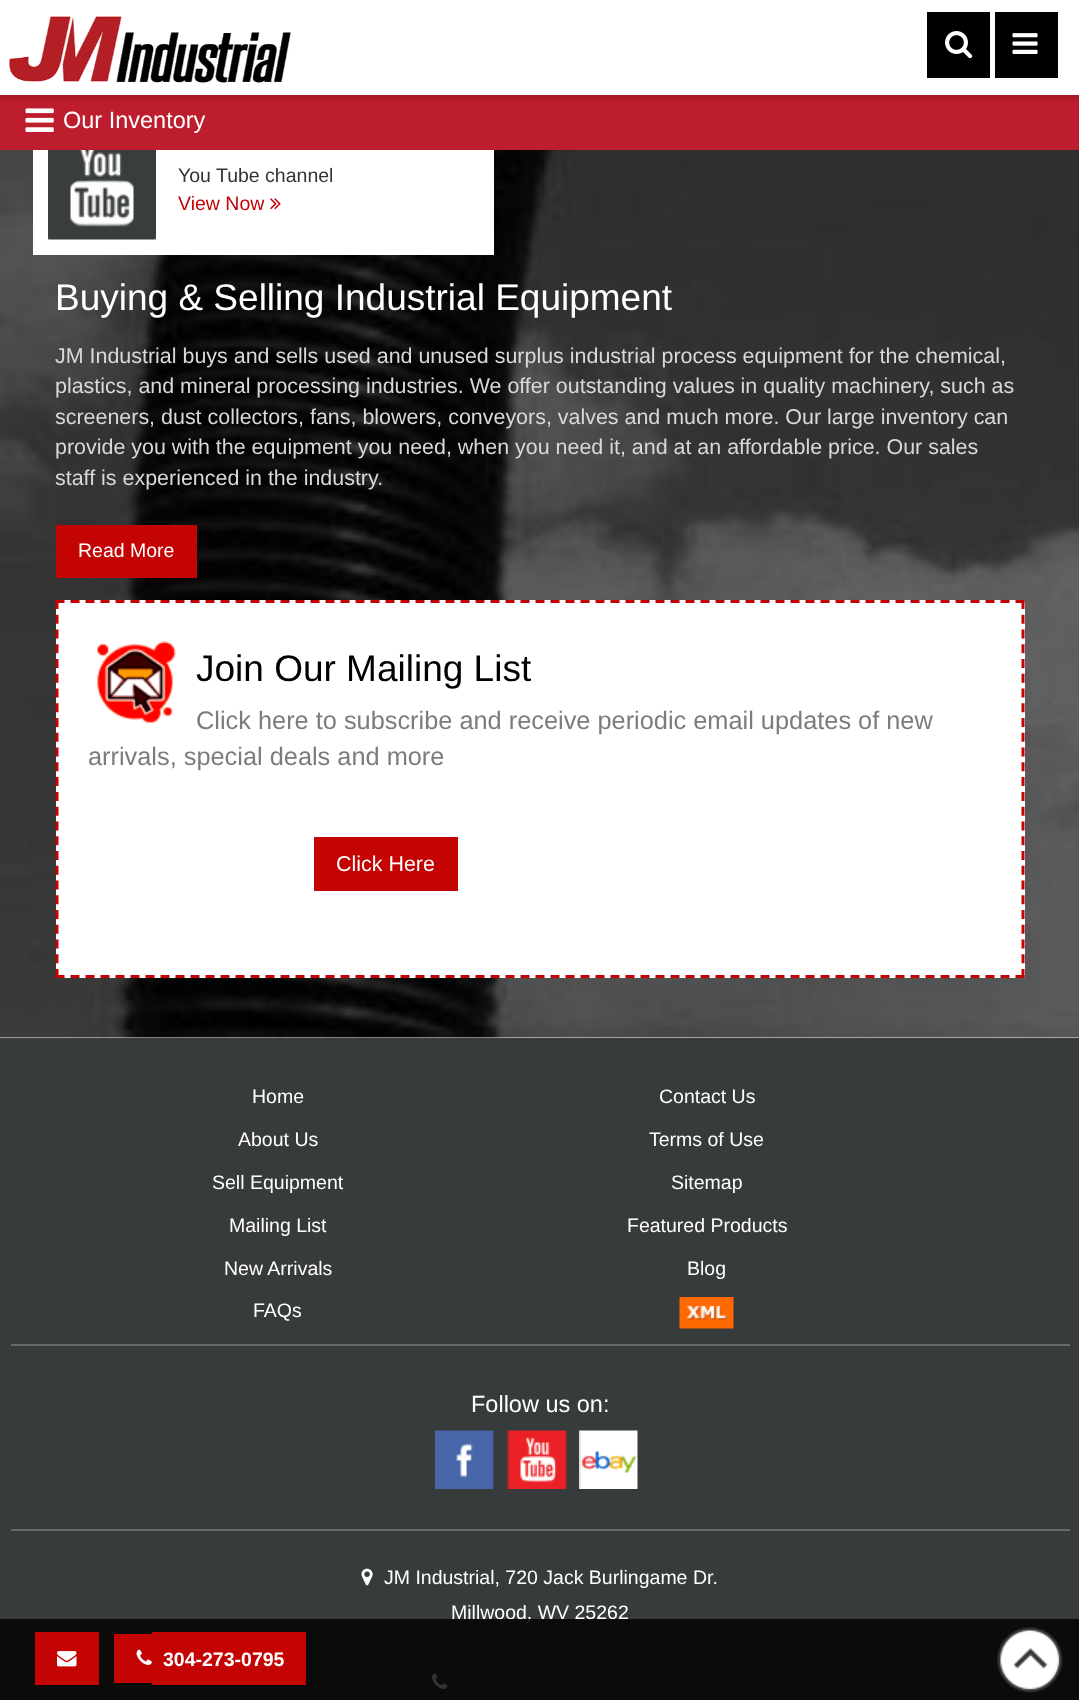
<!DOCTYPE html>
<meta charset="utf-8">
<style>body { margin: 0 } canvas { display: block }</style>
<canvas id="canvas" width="1079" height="1700"></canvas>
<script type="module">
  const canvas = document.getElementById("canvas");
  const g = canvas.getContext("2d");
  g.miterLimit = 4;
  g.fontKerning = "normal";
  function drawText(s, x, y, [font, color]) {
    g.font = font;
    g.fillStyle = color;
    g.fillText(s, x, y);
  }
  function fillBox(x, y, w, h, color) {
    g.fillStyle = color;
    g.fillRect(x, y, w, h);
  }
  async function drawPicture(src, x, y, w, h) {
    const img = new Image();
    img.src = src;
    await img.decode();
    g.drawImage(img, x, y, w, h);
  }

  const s1 = ["23.5px Liberation Sans", "#FFFFFF"];
  const s2 = ["19.5px Liberation Sans", "#333333"];
  const s3 = ["19.5px Liberation Sans", "#C40303"];
  const s4 = ["37px Liberation Sans", "#FFFFFF"];
  const s5 = ["21.45px Liberation Sans", "#D9D9D9"];
  const s6 = ["19.5px Liberation Sans", "#FFFFFF"];
  const s7 = ["37px Liberation Sans", "#000000"];
  const s8 = ["25.35px Liberation Sans", "#7C7C7C"];
  const s9 = ["21.45px Liberation Sans", "#FFFFFF"];
  const s10 = ["bold 19.5px Liberation Sans", "#FFFFFF"];

  fillBox(0, 0, 1079, 1700, "#FFFFFF");
  fillBox(0, 95, 1079, 55, "#BD1D2C");
  g.fillStyle = "rgba(0, 0, 0, 0.13)";
  g.filter = "blur(2px)";
  g.beginPath();
  g.rect(-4, -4, 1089, 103);
  g.fill();
  g.filter = "none";
  fillBox(0, 0, 1079, 95, "#FFFFFF");
  await drawPicture("pic1.png", 9, 16, 282, 67);
  fillBox(927, 12, 63, 66, "#000000");
  await drawPicture("pic2.png", 945, 31, 28, 28);
  fillBox(995, 12, 63, 66, "#000000");
  await drawPicture("pic3.png", 1012, 33, 26, 21);
  await drawPicture("pic4.png", 25, 108, 29, 24);
  drawText("Our Inventory", 63, 128, s1);
  await drawPicture("pic5.png", 0, 150, 1079, 888);
  fillBox(33, 150, 461, 105, "#FFFFFF");
  await drawPicture("pic6.png", 48, 150, 108, 90);
  drawText("You Tube channel", 178, 182, s2);
  drawText("View Now", 178, 210, s3);
  await drawPicture("pic7.png", 270, 198, 11, 12);
  drawText("Buying & Selling Industrial Equipment", 55, 310, s4);
  drawText("JM Industrial buys and sells used and unused surplus industrial process equipment for the chemical,", 55, 363, s5);
  drawText("plastics, and mineral processing industries. We offer outstanding values in quality machinery, such as", 55, 393, s5);
  drawText("screeners, dust collectors, fans, blowers, conveyors, valves and much more. Our large inventory can", 55, 424, s5);
  drawText("provide you with the equipment you need, when you need it, and at an affordable price. Our sales", 55, 454, s5);
  drawText("staff is experienced in the industry.", 55, 485, s5);
  fillBox(56, 525, 141, 53, "#C40303");
  drawText("Read More", 78, 557, s6);
  fillBox(56, 600, 969, 378, "#FFFFFF");
  g.beginPath();
  g.moveTo(55.5, 601.5);
  g.lineTo(1024.5, 601.5);
  g.strokeStyle = "#C40303";
  g.lineWidth = 3;
  g.setLineDash([9, 6]);
  g.stroke();
  g.beginPath();
  g.moveTo(1023, 600);
  g.lineTo(1023, 978);
  g.setLineDash([9, 5.76]);
  g.stroke();
  g.beginPath();
  g.moveTo(55.5, 976.5);
  g.lineTo(1024.5, 976.5);
  g.setLineDash([9, 6]);
  g.stroke();
  g.beginPath();
  g.moveTo(57, 600);
  g.lineTo(57, 978);
  g.setLineDash([9, 5.76]);
  g.stroke();
  await drawPicture("pic8.png", 97, 641, 79, 82);
  drawText("Join Our Mailing List", 196, 681, s7);
  drawText("Click here to subscribe and receive periodic email updates of new", 196, 729, s8);
  drawText("arrivals, special deals and more", 88, 765, s8);
  fillBox(314, 837, 144, 54, "#C40303");
  drawText("Click Here", 336, 871, s9);
  fillBox(0, 1038, 1079, 662, "#383B3B");
  fillBox(11, 1344, 1059, 2, "#686A6A");
  drawText("Home", 252, 1103, s6);
  drawText("About Us", 238, 1146, s6);
  drawText("Sell Equipment", 212, 1189, s6);
  drawText("Mailing List", 229, 1232, s6);
  drawText("New Arrivals", 224, 1275, s6);
  drawText("FAQs", 253, 1317, s6);
  drawText("Contact Us", 659, 1103, s6);
  drawText("Terms of Use", 649, 1146, s6);
  drawText("Sitemap", 671, 1189, s6);
  drawText("Featured Products", 627, 1232, s6);
  drawText("Blog", 687, 1275, s6);
  await drawPicture("pic9.png", 679, 1297, 55, 32);
  fillBox(11, 1529, 1059, 2, "#686A6A");
  drawText("Follow us on:", 471, 1412, s1);
  await drawPicture("pic10.png", 435, 1430, 59, 59);
  await drawPicture("pic11.png", 507, 1430, 60, 59);
  await drawPicture("pic12.png", 579, 1430, 59, 59);
  await drawPicture("pic13.png", 361, 1568, 12, 18);
  drawText("JM Industrial, 720 Jack Burlingame Dr.", 384, 1584, s6);
  drawText("Millwood, WV 25262", 451, 1619, s6);
  await drawPicture("pic14.png", 432, 1673, 16, 16);
  fillBox(0, 1619, 1079, 81, "rgba(0, 0, 0, 0.8)");
  fillBox(35, 1632, 64, 53, "#C40303");
  await drawPicture("pic15.png", 57, 1651, 20, 16);
  fillBox(114, 1634, 38, 49, "#C40303");
  fillBox(152, 1632, 154, 53, "#C40303");
  await drawPicture("pic16.png", 136, 1649, 16, 16);
  drawText("304-273-0795", 163, 1666, s10);
  await drawPicture("pic17.png", 997, 1627, 66, 66);
</script>
